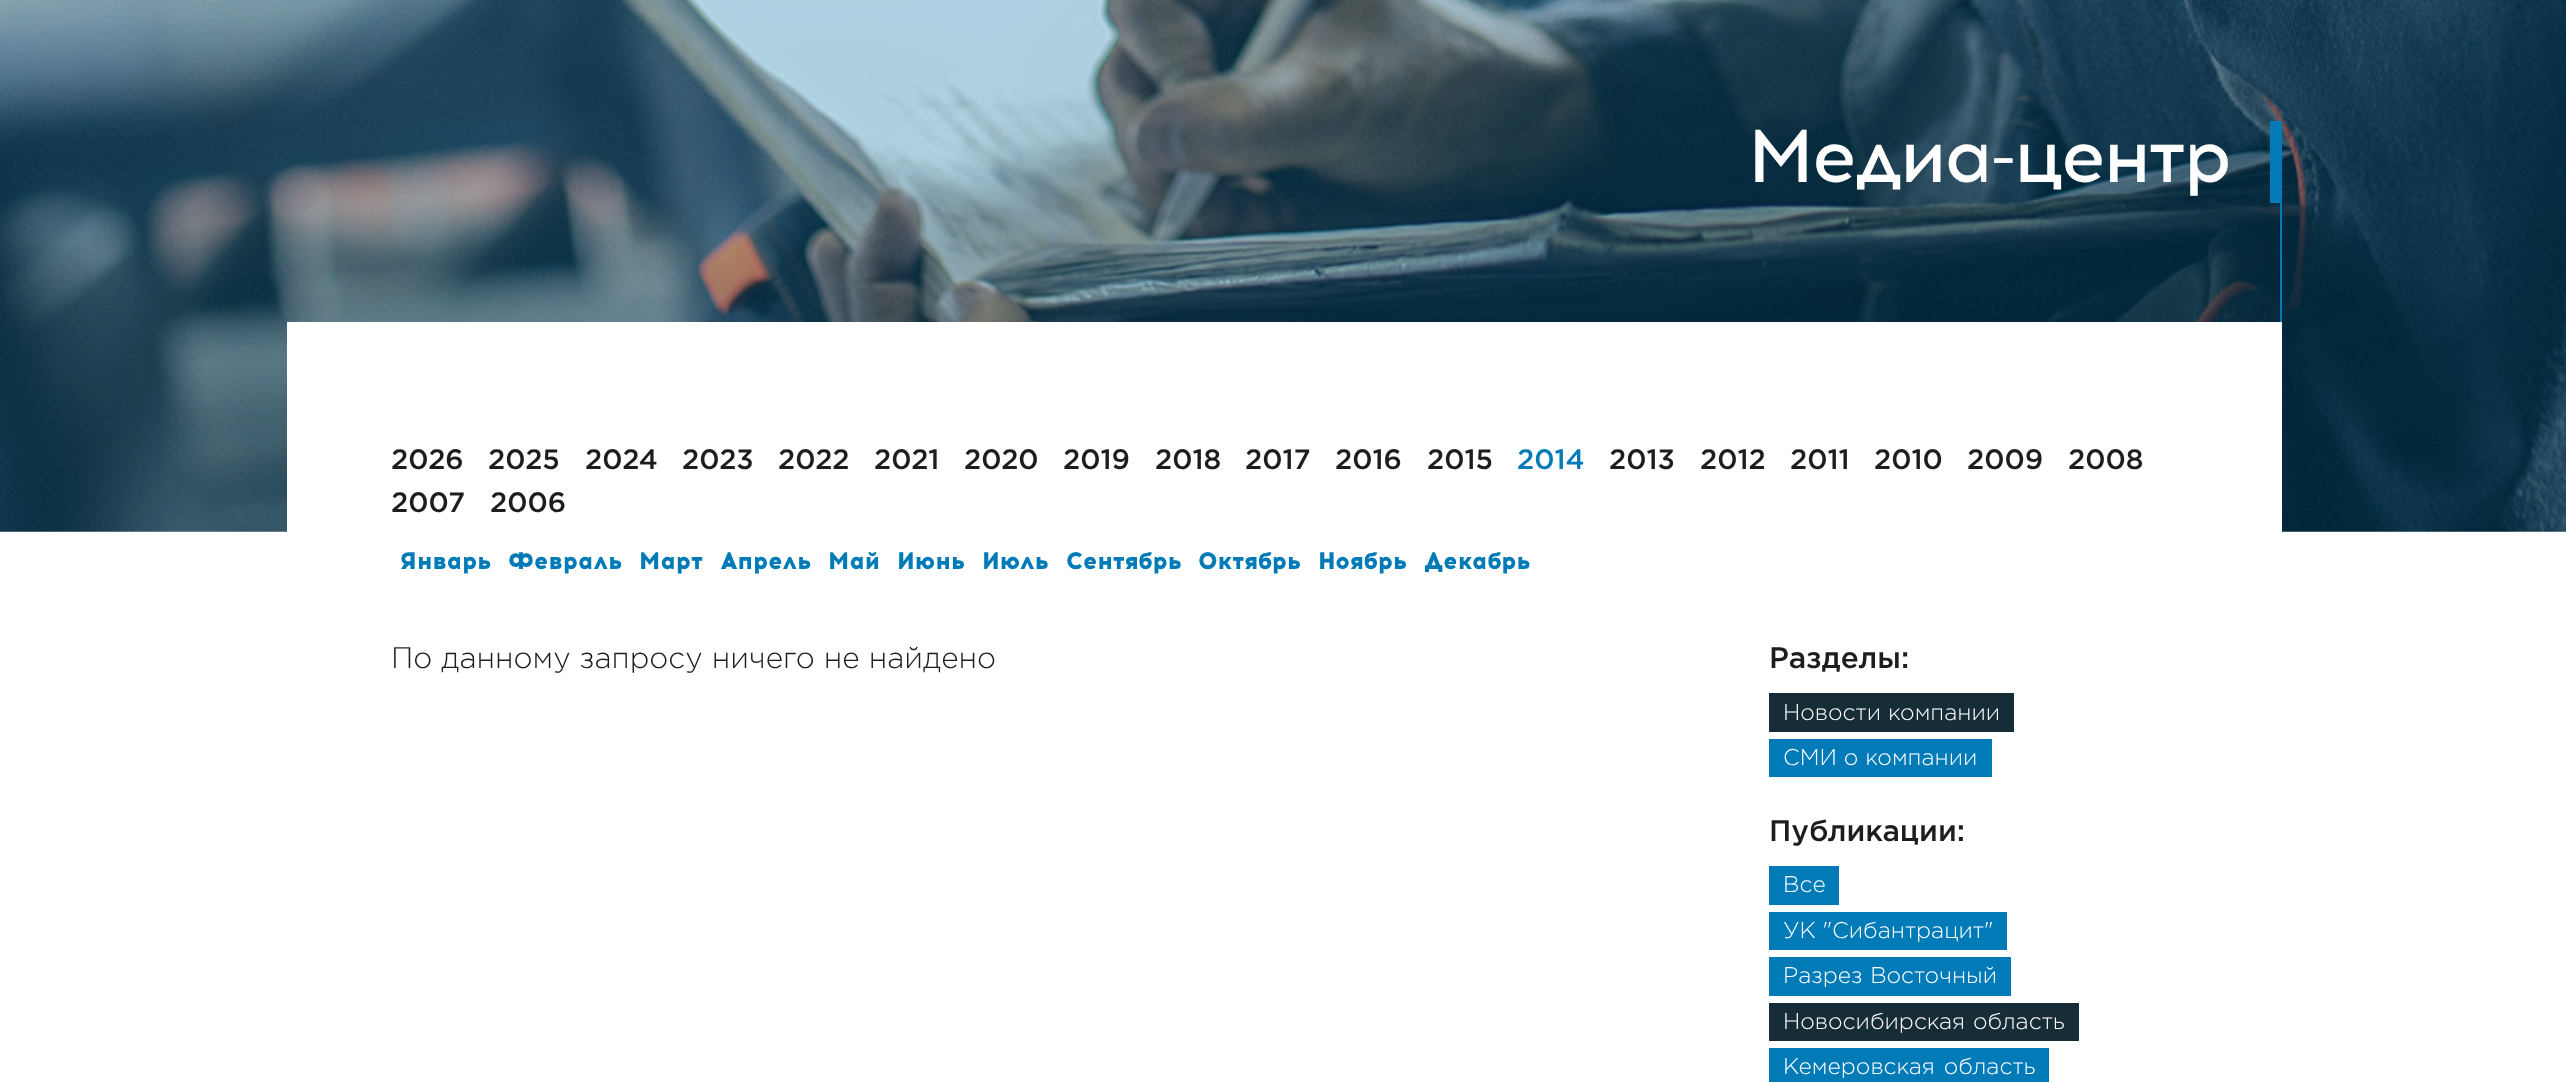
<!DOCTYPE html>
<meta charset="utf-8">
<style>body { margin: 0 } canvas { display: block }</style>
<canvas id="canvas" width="2566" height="1082"></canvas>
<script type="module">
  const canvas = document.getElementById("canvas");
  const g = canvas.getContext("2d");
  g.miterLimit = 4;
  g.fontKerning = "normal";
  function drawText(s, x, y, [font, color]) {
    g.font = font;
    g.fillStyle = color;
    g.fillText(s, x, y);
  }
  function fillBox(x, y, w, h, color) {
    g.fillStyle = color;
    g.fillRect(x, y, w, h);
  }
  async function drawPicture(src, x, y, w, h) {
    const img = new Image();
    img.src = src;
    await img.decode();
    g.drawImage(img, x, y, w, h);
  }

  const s1 = ["74.5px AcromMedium", "#FFFFFF"];
  const s2 = ["500 28px Gotham", "#1D1D1B"];
  const s3 = ["500 28px Gotham", "#007BB7"];
  const s4 = ["24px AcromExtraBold", "#007BB7"];
  const s5 = ["300 29.75px Gotham", "#1D1D1B"];
  const s6 = ["500 29.75px Gotham", "#1D1D1B"];
  const s7 = ["300 22.75px Gotham", "#FFFFFF"];

  fillBox(0, 0, 2566, 1082, "#FFFFFF");
  await drawPicture("pic1.png", 0, 0, 2566, 532);
  g.letterSpacing = "-3px";
  drawText("Медиа-центр", 1748, 182, s1);
  fillBox(2270, 121, 10, 82, "#007BB7");
  fillBox(2280, 121, 2, 201, "#007BB7");
  fillBox(287, 322, 1995, 210, "#FFFFFF");
  g.letterSpacing = "0px";
  drawText("2026", 391, 469, s2);
  drawText("2025", 488, 469, s2);
  drawText("2024", 585, 469, s2);
  drawText("2023", 682, 469, s2);
  drawText("2022", 778, 469, s2);
  drawText("2021", 874, 469, s2);
  drawText("2020", 964, 469, s2);
  drawText("2019", 1063, 469, s2);
  drawText("2018", 1155, 469, s2);
  drawText("2017", 1245, 469, s2);
  drawText("2016", 1335, 469, s2);
  drawText("2015", 1427, 469, s2);
  drawText("2014", 1517, 469, s3);
  drawText("2013", 1609, 469, s2);
  drawText("2012", 1700, 469, s2);
  drawText("2011", 1790, 469, s2);
  drawText("2010", 1874, 469, s2);
  drawText("2009", 1967, 469, s2);
  drawText("2008", 2068, 469, s2);
  drawText("2007", 391, 512, s2);
  drawText("2006", 490, 512, s2);
  drawText("Январь", 400, 569, s4);
  drawText("Февраль", 508, 569, s4);
  drawText("Март", 639, 569, s4);
  drawText("Апрель", 720, 569, s4);
  drawText("Май", 828, 569, s4);
  drawText("Июнь", 897, 569, s4);
  drawText("Июль", 982, 569, s4);
  drawText("Сентябрь", 1066, 569, s4);
  drawText("Октябрь", 1198, 569, s4);
  drawText("Ноябрь", 1318, 569, s4);
  drawText("Декабрь", 1424, 569, s4);
  drawText("По данному запросу ничего не найдено", 391, 668, s5);
  drawText("Разделы:", 1769, 668, s6);
  fillBox(1769, 693, 245, 39, "#162C36");
  drawText("Новости компании", 1783, 720, s7);
  fillBox(1769, 739, 223, 38, "#007BB7");
  drawText("СМИ о компании", 1783, 765, s7);
  drawText("Публикации:", 1769, 841, s6);
  fillBox(1769, 866, 70, 39, "#007BB7");
  drawText("Все", 1783, 892, s7);
  fillBox(1769, 912, 238, 38, "#007BB7");
  drawText("УК \"Сибантрацит\"", 1783, 938, s7);
  fillBox(1769, 957, 242, 39, "#007BB7");
  g.wordSpacing = "1px";
  drawText("Разрез Восточный", 1783, 983, s7);
  fillBox(1769, 1003, 310, 38, "#162C36");
  drawText("Новосибирская область", 1783, 1029, s7);
  fillBox(1769, 1048, 280, 34, "#007BB7");
  g.wordSpacing = "2px";
  drawText("Кемеровская область", 1783, 1074, s7);
</script>
